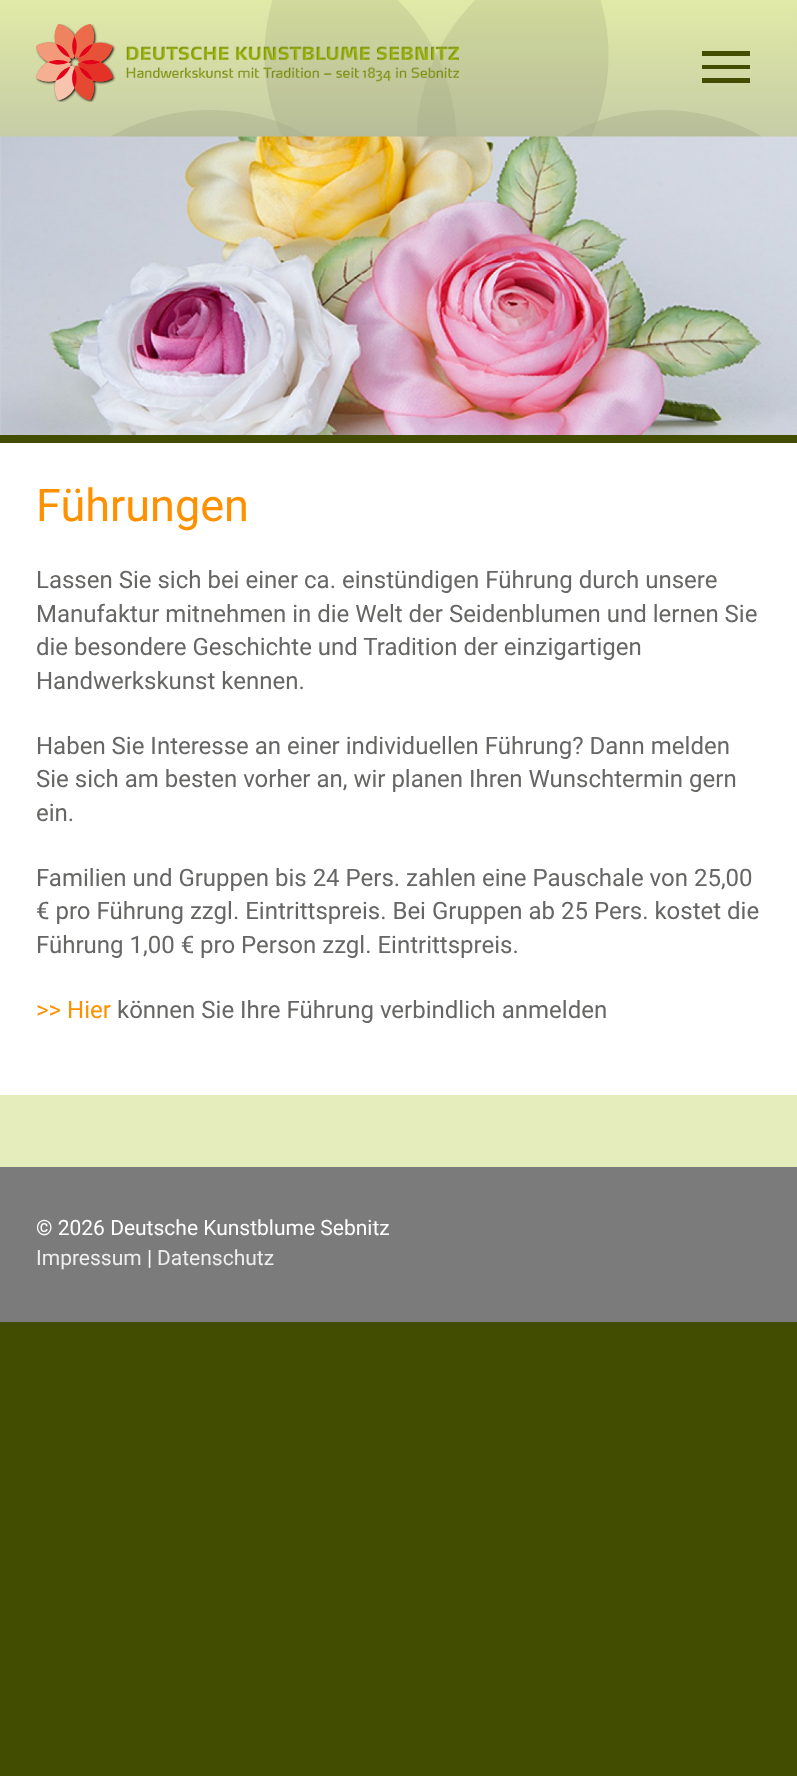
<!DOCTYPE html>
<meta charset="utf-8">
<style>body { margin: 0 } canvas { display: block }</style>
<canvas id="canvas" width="797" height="1776"></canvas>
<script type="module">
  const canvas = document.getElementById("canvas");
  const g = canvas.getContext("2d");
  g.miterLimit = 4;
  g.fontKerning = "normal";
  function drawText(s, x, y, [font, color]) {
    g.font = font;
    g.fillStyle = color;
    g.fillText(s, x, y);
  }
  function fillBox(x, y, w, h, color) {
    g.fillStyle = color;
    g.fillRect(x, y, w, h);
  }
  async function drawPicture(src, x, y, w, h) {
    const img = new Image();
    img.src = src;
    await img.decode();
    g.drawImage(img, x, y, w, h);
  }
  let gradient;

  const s1 = ["45px Roboto", "#FF9000"];
  const s2 = ["24px Roboto", "#666665"];
  const s3 = ["24px Roboto", "#FF9000"];
  const s4 = ["21px Roboto", "#FFFFFF"];
  const s5 = ["21px Roboto", "#EEEEEE"];

  fillBox(0, 0, 797, 1776, "#424D01");
  fillBox(0, 443, 797, 652, "#FFFFFF");
  gradient = g.createLinearGradient(399, 0, 399, 137);
  gradient.addColorStop(0, "#E1EAA7");
  gradient.addColorStop(1, "#C6CCA6");
  g.fillStyle = gradient;
  g.fillRect(0, 0, 797, 137);
  await drawPicture("pic1.png", 111, 0, 651, 137);
  await drawPicture("pic2.png", 36, 24, 423, 78);
  fillBox(702, 51, 48, 5, "#424D01");
  fillBox(702, 65, 48, 4, "#424D01");
  fillBox(702, 78, 48, 5, "#424D01");
  await drawPicture("pic3.png", 0, 136, 797, 299);
  drawText("Führungen", 36, 521, s1);
  drawText("Lassen Sie sich bei einer ca. einstündigen Führung durch unsere", 36, 588, s2);
  drawText("Manufaktur mitnehmen in die Welt der Seidenblumen und lernen Sie", 36, 622, s2);
  drawText("die besondere Geschichte und Tradition der einzigartigen", 36, 655, s2);
  drawText("Handwerkskunst kennen.", 36, 689, s2);
  drawText("Haben Sie Interesse an einer individuellen Führung? Dann melden", 36, 754, s2);
  drawText("Sie sich am besten vorher an, wir planen Ihren Wunschtermin gern", 36, 787, s2);
  drawText("ein.", 36, 821, s2);
  drawText("Familien und Gruppen bis 24 Pers. zahlen eine Pauschale von 25,00", 36, 886, s2);
  drawText("€ pro Führung zzgl. Eintrittspreis. Bei Gruppen ab 25 Pers. kostet die", 36, 919, s2);
  drawText("Führung 1,00 € pro Person zzgl. Eintrittspreis.", 36, 953, s2);
  drawText(">> Hier", 36, 1018, s3);
  drawText("können Sie Ihre Führung verbindlich anmelden", 117, 1018, s2);
  fillBox(0, 1095, 797, 72, "#E6EDBD");
  fillBox(0, 1167, 797, 155, "#7B7B7B");
  drawText("© 2026 Deutsche Kunstblume Sebnitz", 36, 1235, s4);
  drawText("Impressum", 36, 1265, s5);
  drawText("|", 147, 1265, s4);
  drawText("Datenschutz", 157, 1265, s5);
</script>
